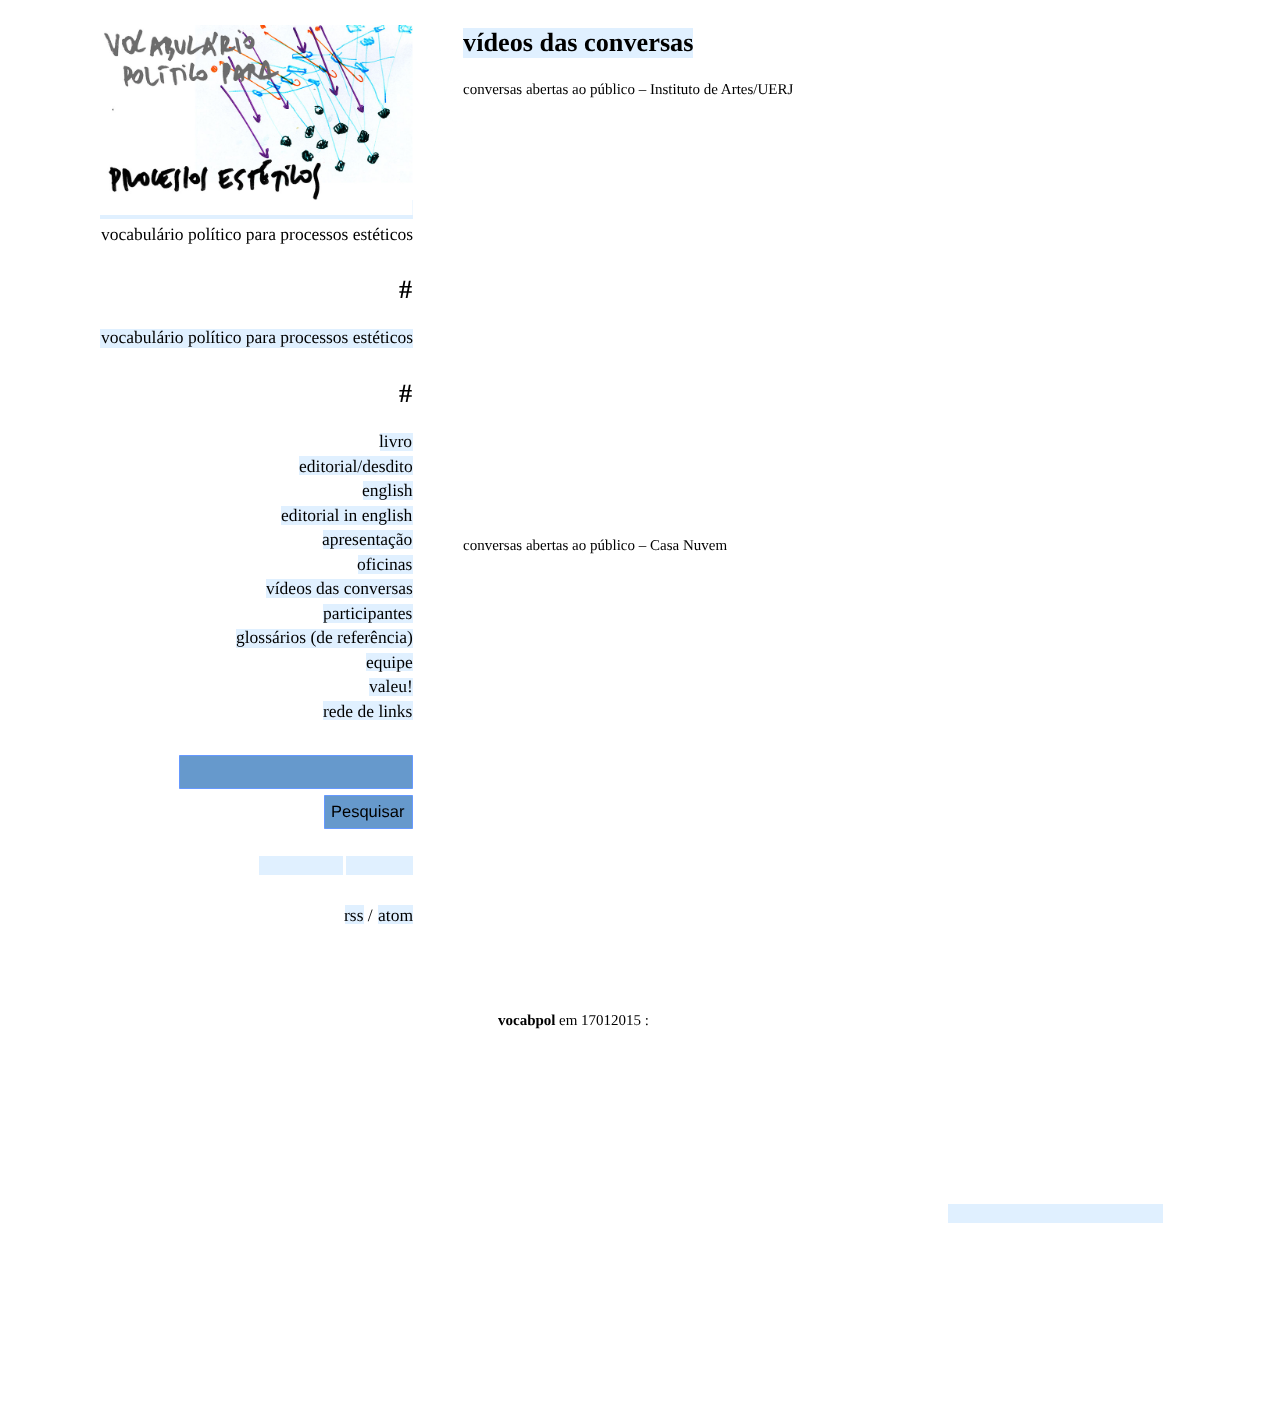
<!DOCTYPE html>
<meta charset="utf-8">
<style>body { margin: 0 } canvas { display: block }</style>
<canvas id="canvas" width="1262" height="1422"></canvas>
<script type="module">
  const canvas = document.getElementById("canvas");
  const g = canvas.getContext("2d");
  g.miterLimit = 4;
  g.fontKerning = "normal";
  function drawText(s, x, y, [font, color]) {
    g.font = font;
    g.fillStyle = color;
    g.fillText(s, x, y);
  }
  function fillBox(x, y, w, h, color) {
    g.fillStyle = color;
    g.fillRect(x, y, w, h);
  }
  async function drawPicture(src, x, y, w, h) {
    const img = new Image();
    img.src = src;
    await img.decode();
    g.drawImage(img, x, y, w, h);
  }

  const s1 = ["17.5px Liberation Serif", "#000000"];
  const s2 = ["bold 26.25px Liberation Serif", "#000000"];
  const s3 = ["16.5px Liberation Sans", "#000000"];
  const s4 = ["15px Liberation Serif", "#000000"];
  const s5 = ["bold 15px Liberation Serif", "#000000"];

  fillBox(0, 0, 1262, 1422, "#FFFFFF");
  fillBox(100, 200, 313, 19, "#E0F0FF");
  await drawPicture("pic1.png", 100, 25, 313, 190);
  drawText("vocabulário político para processos estéticos", 101, 240, s1);
  drawText("#", 399, 298, s2);
  fillBox(100, 329, 313, 19, "#E0F0FF");
  drawText("vocabulário político para processos estéticos", 101, 343, s1);
  drawText("#", 399, 402, s2);
  fillBox(380, 433, 33, 18, "#E0F0FF");
  drawText("livro", 379, 447, s1);
  fillBox(299, 456, 114, 19, "#E0F0FF");
  drawText("editorial/desdito", 299, 472, s1);
  fillBox(363, 481, 50, 19, "#E0F0FF");
  drawText("english", 362, 496, s1);
  fillBox(281, 506, 132, 19, "#E0F0FF");
  drawText("editorial in english", 281, 521, s1);
  fillBox(323, 530, 90, 19, "#E0F0FF");
  drawText("apresentação", 322, 545, s1);
  fillBox(358, 555, 55, 19, "#E0F0FF");
  drawText("oficinas", 357, 570, s1);
  fillBox(266, 579, 147, 19, "#E0F0FF");
  drawText("vídeos das conversas", 266, 594, s1);
  fillBox(323, 604, 90, 19, "#E0F0FF");
  drawText("participantes", 323, 619, s1);
  fillBox(236, 629, 177, 19, "#E0F0FF");
  drawText("glossários (de referência)", 236, 643, s1);
  fillBox(366, 653, 47, 18, "#E0F0FF");
  drawText("equipe", 366, 668, s1);
  fillBox(369, 678, 44, 18, "#E0F0FF");
  drawText("valeu!", 369, 692, s1);
  fillBox(323, 701, 90, 19, "#E0F0FF");
  drawText("rede de links", 323, 717, s1);
  g.fillStyle = "#6699CC";
  g.beginPath();
  g.rect(179.5, 755.5, 233, 33);
  g.fill();
  g.strokeStyle = "#6699FF";
  g.stroke();
  g.beginPath();
  g.rect(324.5, 795.5, 88, 33);
  g.fill();
  g.stroke();
  drawText("Pesquisar", 331, 817, s3);
  fillBox(259, 856, 84, 19, "#E0F0FF");
  fillBox(346, 856, 67, 19, "#E0F0FF");
  fillBox(345, 905, 19, 19, "#E0F0FF");
  drawText("rss /", 344, 921, s1);
  fillBox(378, 905, 35, 19, "#E0F0FF");
  drawText("atom", 378, 921, s1);
  fillBox(463, 28, 230, 30, "#E0F0FF");
  drawText("vídeos das conversas", 463, 51, s2);
  drawText("conversas abertas ao público – Instituto de Artes/UERJ", 463, 94, s4);
  drawText("conversas abertas ao público – Casa Nuvem", 463, 550, s4);
  drawText("vocabpol", 498, 1025, s5);
  drawText("em 17012015 :", 559, 1025, s4);
  fillBox(948, 1204, 215, 19, "#E0F0FF");
</script>
